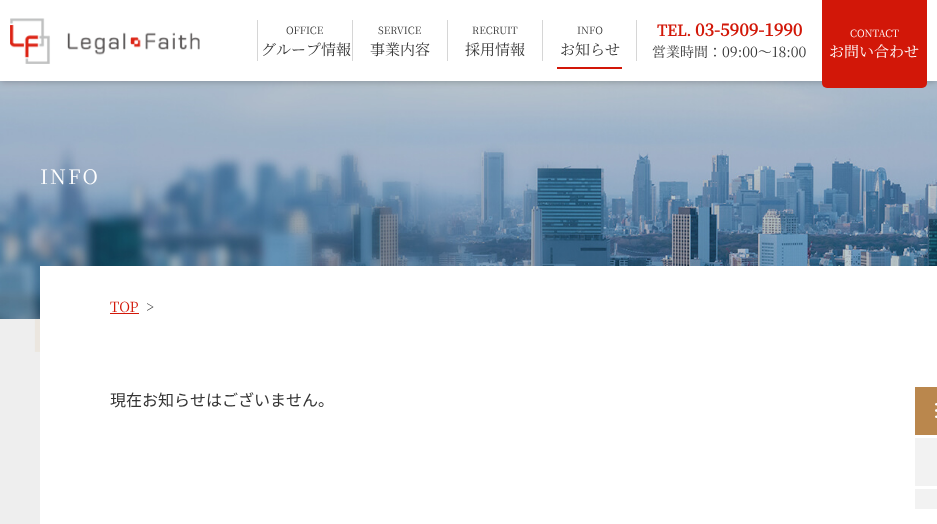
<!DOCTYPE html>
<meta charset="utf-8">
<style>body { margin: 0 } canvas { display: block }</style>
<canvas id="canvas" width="937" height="524"></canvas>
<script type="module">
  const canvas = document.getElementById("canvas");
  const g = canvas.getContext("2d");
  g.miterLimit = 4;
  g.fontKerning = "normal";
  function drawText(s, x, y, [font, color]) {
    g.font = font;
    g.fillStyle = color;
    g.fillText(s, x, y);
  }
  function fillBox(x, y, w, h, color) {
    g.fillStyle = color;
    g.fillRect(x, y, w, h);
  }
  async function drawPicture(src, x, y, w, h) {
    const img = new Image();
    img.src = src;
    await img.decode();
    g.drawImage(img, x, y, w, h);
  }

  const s1 = ["10px Noto Serif JP", "#333333"];
  const s2 = ["15px Noto Serif JP", "#333333"];
  const s3 = ["bold 15px Noto Serif JP", "#D21708"];
  const s4 = ["bold 17px Noto Serif JP", "#D21708"];
  const s5 = ["14px Noto Serif JP", "#333333"];
  const s6 = ["10px Noto Serif JP", "#FFFFFF"];
  const s7 = ["15px Noto Serif JP", "#FFFFFF"];
  const s8 = ["20px Noto Serif JP", "#FFFFFF"];
  const s9 = ["14px Noto Serif JP", "#D21708"];
  const s10 = ["16px Noto Sans JP", "#333333"];

  fillBox(0, 0, 937, 524, "#FFFFFF");
  await drawPicture("pic2.png", 0, 81, 937, 238);
  g.fillStyle = "rgba(0, 0, 0, 0.3)";
  g.filter = "blur(3.5px)";
  g.beginPath();
  g.rect(0, 0, 937, 81);
  g.fill();
  g.filter = "none";
  fillBox(0, 0, 937, 81, "#FFFFFF");
  await drawPicture("pic1.png", 10, 18, 190, 46);
  fillBox(257, 20, 1, 41, "#D6D6D6");
  drawText("OFFICE", 286, 34, s1);
  drawText("グループ情報", 261, 55, s2);
  fillBox(352, 20, 1, 41, "#D6D6D6");
  drawText("SERVICE", 378, 34, s1);
  drawText("事業内容", 370, 55, s2);
  fillBox(447, 20, 1, 41, "#D6D6D6");
  drawText("RECRUIT", 472, 34, s1);
  drawText("採用情報", 465, 55, s2);
  fillBox(636, 20, 1, 41, "#D6D6D6");
  fillBox(542, 20, 1, 41, "#D6D6D6");
  drawText("INFO", 577, 34, s1);
  drawText("お知らせ", 560, 55, s2);
  fillBox(557, 67, 65, 2, "#D21708");
  drawText("TEL.", 657, 36, s3);
  drawText("03-5909-1990", 695, 36, s4);
  drawText("営業時間：09:00～18:00", 652, 57, s5);
  g.fillStyle = "#D21708";
  g.beginPath();
  g.roundRect(822, 0, 105, 88, [0, 0, 5, 5]);
  g.fill();
  drawText("CONTACT", 850, 37, s6);
  drawText("お問い合わせ", 829, 57, s7);
  await drawPicture("pic3.png", 0, 319, 40, 205);
  g.letterSpacing = "2px";
  drawText("INFO", 40, 184, s8);
  fillBox(40, 266, 897, 53, "#FFFFFF");
  g.letterSpacing = "0px";
  drawText("TOP", 110, 312, s9);
  fillBox(110, 313, 29, 1, "#D21708");
  drawText(">", 146, 312, s5);
  drawText("現在お知らせはございません。", 110, 406, s10);
  fillBox(915, 387, 22, 48, "#BA874D");
  await drawPicture("pic4.png", 935, 403, 2, 15);
  fillBox(915, 438, 22, 48, "#F2F2F2");
  fillBox(915, 489, 22, 20, "#F2F2F2");
</script>
